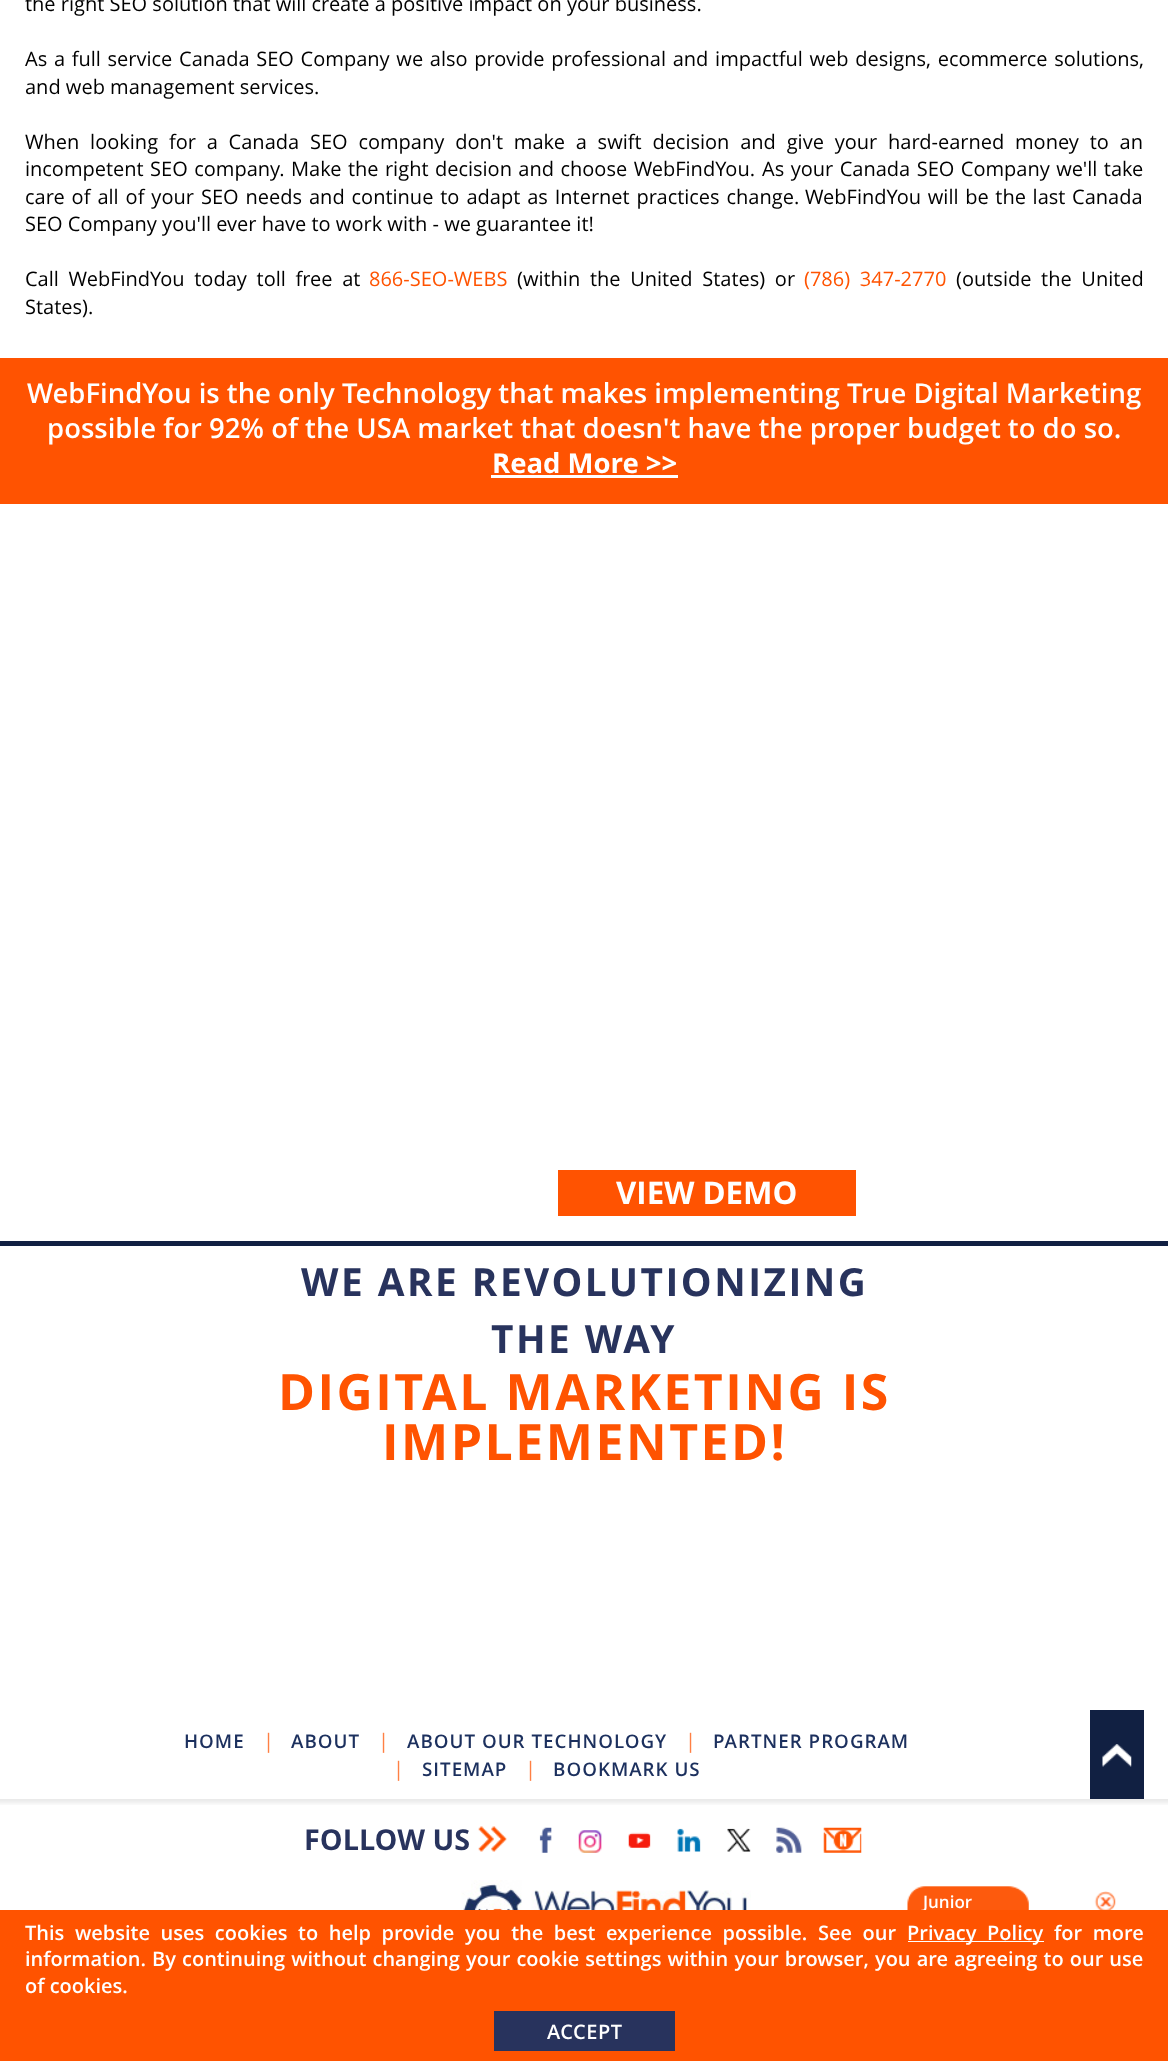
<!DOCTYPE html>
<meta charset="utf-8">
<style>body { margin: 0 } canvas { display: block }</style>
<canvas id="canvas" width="1168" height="2061"></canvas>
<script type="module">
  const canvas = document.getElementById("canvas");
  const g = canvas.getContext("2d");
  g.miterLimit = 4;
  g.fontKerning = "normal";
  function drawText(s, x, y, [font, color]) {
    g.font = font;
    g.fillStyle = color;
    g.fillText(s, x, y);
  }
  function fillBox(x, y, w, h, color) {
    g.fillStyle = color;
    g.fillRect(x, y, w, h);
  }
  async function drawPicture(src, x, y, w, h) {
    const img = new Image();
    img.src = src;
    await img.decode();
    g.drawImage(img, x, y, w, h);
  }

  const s1 = ["20px Open Sans", "#000000"];
  const s2 = ["20px Open Sans", "#FF5301"];
  const s3 = ["600 27.5px Open Sans", "#FFFFFF"];
  const s4 = ["bold 27.5px Open Sans", "#FFFFFF"];
  const s5 = ["bold 31.25px Open Sans", "#FFFFFF"];
  const s6 = ["bold 38.75px Open Sans", "#28335D"];
  const s7 = ["bold 50px Open Sans", "#FF5301"];
  const s8 = ["600 18.75px Open Sans", "#1C305E"];
  const s9 = ["20px Open Sans", "#FF8044"];
  const s10 = ["bold 28.75px Open Sans", "#28335D"];
  const s11 = ["600 17px Open Sans", "#FFFFFF"];
  const s12 = ["600 20px Open Sans", "#FFFFFF"];

  fillBox(0, 0, 1168, 2061, "#FFFFFF");
  drawText("the right SEO solution that will create a positive impact on your business.", 25, 11, s1);
  g.wordSpacing = "1.5px";
  drawText("As a full service Canada SEO Company we also provide professional and impactful web designs, ecommerce solutions,", 25, 66, s1);
  g.wordSpacing = "0px";
  drawText("and web management services.", 25, 94, s1);
  g.wordSpacing = "5.6px";
  drawText("When looking for a Canada SEO company don't make a swift decision and give your hard-earned money to an", 25, 149, s1);
  g.wordSpacing = "1.25px";
  drawText("incompetent SEO company.", 25, 176, s1);
  drawText("Make the right decision and choose WebFindYou.", 291, 176, s1);
  drawText("As your Canada SEO Company we'll take", 762, 176, s1);
  g.wordSpacing = "1.75px";
  drawText("care of all of your SEO needs and continue to adapt as Internet practices change.", 25, 204, s1);
  g.wordSpacing = "1.5px";
  drawText("WebFindYou will be the last Canada", 805, 204, s1);
  g.wordSpacing = "0px";
  drawText("SEO Company you'll ever have to work with - we guarantee it!", 25, 231, s1);
  g.wordSpacing = "4.5px";
  drawText("Call WebFindYou today toll free at", 25, 286, s1);
  g.wordSpacing = "0px";
  drawText("866-SEO-WEBS", 369, 286, s2);
  g.wordSpacing = "4.5px";
  drawText("(within the United States) or", 517, 286, s1);
  drawText("(786) 347-2770", 804, 286, s2);
  drawText("(outside the United", 956, 286, s1);
  g.wordSpacing = "0px";
  drawText("States).", 25, 314, s1);
  fillBox(0, 358, 1168, 146, "#FF5301");
  drawText("WebFindYou is the only Technology that makes implementing True Digital Marketing", 27, 403, s3);
  drawText("possible for 92% of the USA market that doesn't have the proper budget to do so.", 47, 438, s3);
  drawText("Read More >>", 492, 473, s4);
  fillBox(491, 475, 187, 3, "#FFFFFF");
  fillBox(558, 1170, 298, 46, "#FF5301");
  drawText("VIEW DEMO", 616, 1204, s5);
  fillBox(0, 1241, 1168, 5, "#112042");
  g.letterSpacing = "2.5px";
  drawText("WE ARE REVOLUTIONIZING", 301, 1296, s6);
  drawText("THE WAY", 491, 1353, s6);
  drawText("DIGITAL MARKETING IS", 278, 1410, s7);
  drawText("IMPLEMENTED!", 382, 1460, s7);
  g.letterSpacing = "1px";
  drawText("HOME", 184, 1748, s8);
  g.letterSpacing = "0px";
  drawText("|", 263, 1748, s9);
  g.letterSpacing = "1px";
  drawText("ABOUT", 291, 1748, s8);
  g.letterSpacing = "0px";
  drawText("|", 378, 1748, s9);
  g.letterSpacing = "1px";
  drawText("ABOUT OUR TECHNOLOGY", 407, 1748, s8);
  g.letterSpacing = "0px";
  drawText("|", 685, 1748, s9);
  g.letterSpacing = "1px";
  drawText("PARTNER PROGRAM", 713, 1748, s8);
  g.letterSpacing = "0px";
  drawText("|", 393, 1776, s9);
  g.letterSpacing = "1px";
  drawText("SITEMAP", 422, 1776, s8);
  g.letterSpacing = "0px";
  drawText("|", 525, 1776, s9);
  g.letterSpacing = "1px";
  drawText("BOOKMARK US", 553, 1776, s8);
  fillBox(1090, 1710, 54, 89, "#112042");
  await drawPicture("pic1.png", 1102, 1744, 30, 23);
  await drawPicture("pic2.png", 0, 1799, 1168, 6);
  await drawPicture("pic3.png", 478, 1826, 29, 26);
  g.letterSpacing = "0px";
  drawText("FOLLOW US", 304, 1850, s10);
  await drawPicture("pic4.png", 539, 1827, 13, 26);
  await drawPicture("pic5.png", 578, 1830, 24, 23);
  await drawPicture("pic6.png", 628, 1832, 23, 16);
  await drawPicture("pic7.png", 677, 1828, 24, 24);
  await drawPicture("pic8.png", 727, 1828, 24, 24);
  await drawPicture("pic9.png", 776, 1827, 26, 26);
  await drawPicture("pic10.png", 823, 1827, 39, 26);
  await drawPicture("pic11.png", 461, 1880, 290, 30);
  await drawPicture("pic12.png", 907, 1886, 122, 24);
  drawText("Junior", 923, 1908, s11);
  await drawPicture("pic13.png", 1094, 1891, 22, 19);
  fillBox(0, 1910, 1168, 151, "#FF5300");
  g.wordSpacing = "5.4px";
  drawText("This website uses cookies to help provide you the best experience possible. See our", 25, 1940, s12);
  fillBox(908, 1941, 136, 1, "#FFFFFF");
  drawText("Privacy Policy", 907, 1940, s12);
  drawText("for more", 1054, 1940, s12);
  g.wordSpacing = "0.9px";
  drawText("information. By continuing without changing your cookie settings within your browser, you are agreeing to our use", 25, 1966, s12);
  g.wordSpacing = "0px";
  drawText("of cookies.", 25, 1993, s12);
  fillBox(494, 2011, 181, 40, "#28335D");
  g.letterSpacing = "0.5px";
  drawText("ACCEPT", 547, 2039, s12);
</script>
